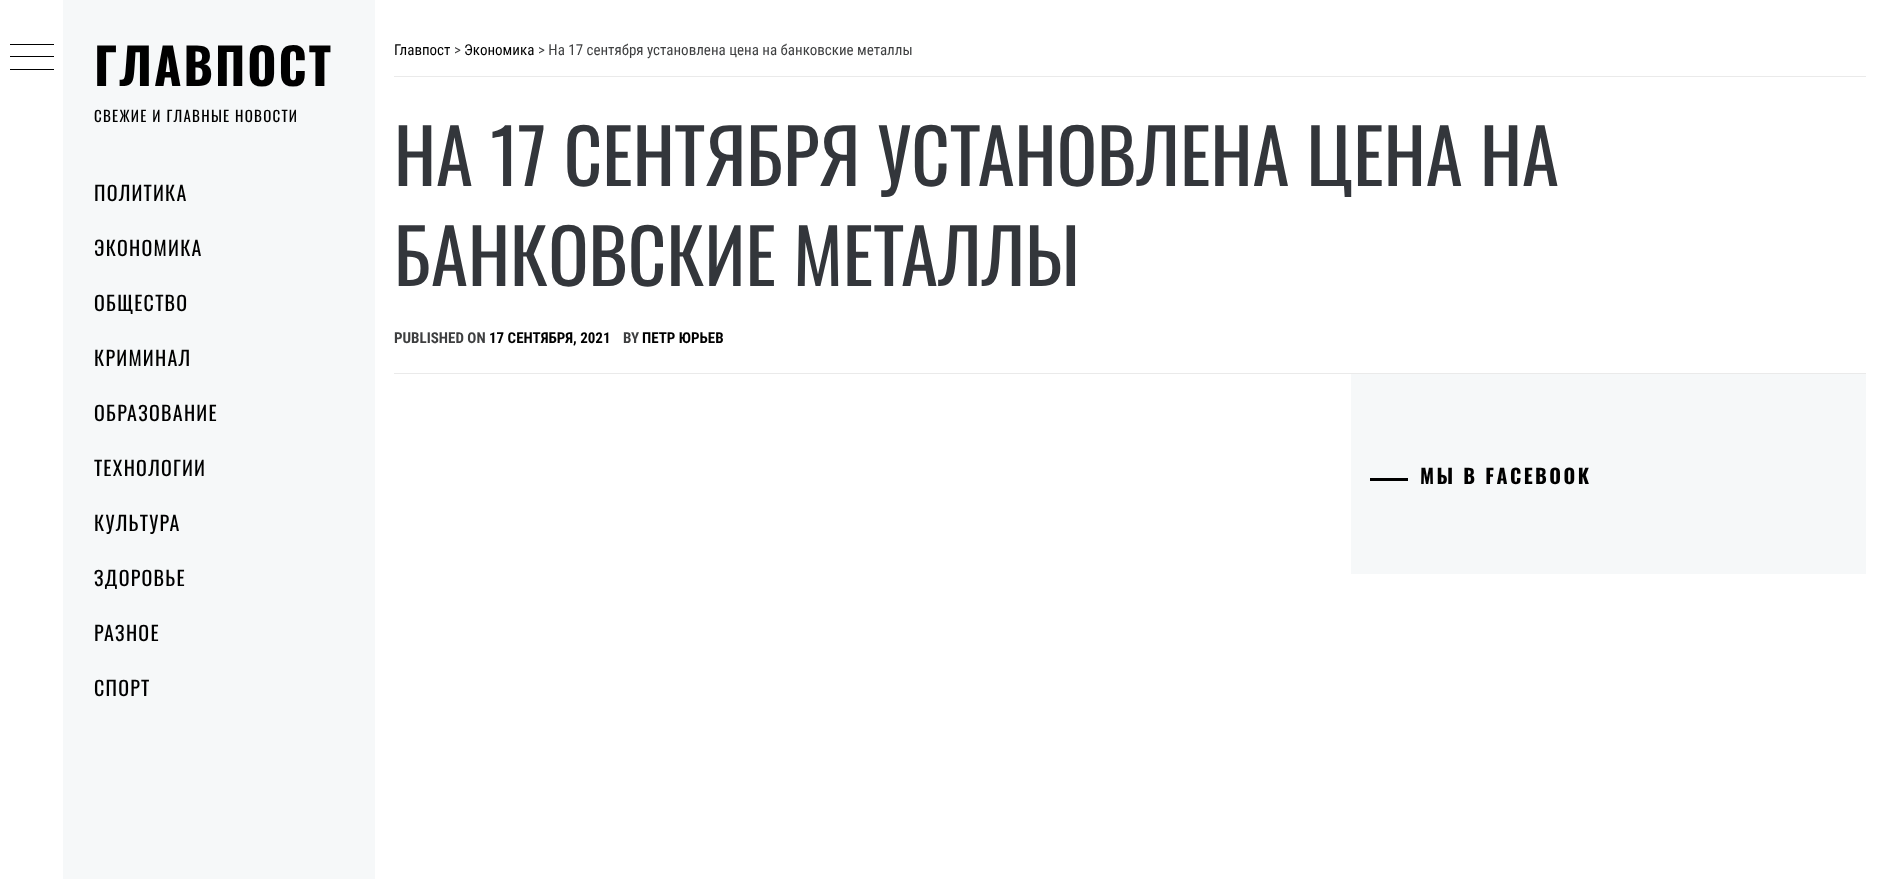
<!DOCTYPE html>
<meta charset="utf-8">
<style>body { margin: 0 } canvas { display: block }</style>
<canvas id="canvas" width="1884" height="879"></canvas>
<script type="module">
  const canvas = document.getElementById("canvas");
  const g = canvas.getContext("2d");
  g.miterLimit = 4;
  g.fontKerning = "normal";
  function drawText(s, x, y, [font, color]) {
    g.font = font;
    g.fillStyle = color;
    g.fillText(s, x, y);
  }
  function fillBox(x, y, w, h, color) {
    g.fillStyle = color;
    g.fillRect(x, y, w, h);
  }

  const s1 = ["bold 50px Oswald", "#000000"];
  const s2 = ["15px Oswald", "#000000"];
  const s3 = ["20px Oswald", "#000000"];
  const s4 = ["15px Roboto Condensed", "#000000"];
  const s5 = ["15px Roboto Condensed", "#3E3F40"];
  const s6 = ["75px Oswald", "#33363B"];
  const s7 = ["bold 15px Roboto Condensed", "#3E3F40"];
  const s8 = ["bold 15px Roboto Condensed", "#000000"];
  const s9 = ["bold 20px Oswald", "#000000"];

  fillBox(0, 0, 1884, 879, "#FFFFFF");
  fillBox(10, 44, 44, 1, "#000000");
  fillBox(10, 56, 44, 1, "#000000");
  fillBox(10, 69, 44, 1, "#000000");
  fillBox(63, 0, 312, 879, "#F6F8F9");
  g.letterSpacing = "2px";
  drawText("ГЛАВПОСТ", 94, 86, s1);
  g.letterSpacing = "1.25px";
  drawText("СВЕЖИЕ И ГЛАВНЫЕ НОВОСТИ", 94, 122, s2);
  drawText("ПОЛИТИКА", 94, 201, s3);
  drawText("ЭКОНОМИКА", 94, 256, s3);
  drawText("ОБЩЕСТВО", 94, 311, s3);
  drawText("КРИМИНАЛ", 94, 366, s3);
  drawText("ОБРАЗОВАНИЕ", 94, 421, s3);
  drawText("ТЕХНОЛОГИИ", 94, 476, s3);
  drawText("КУЛЬТУРА", 94, 531, s3);
  drawText("ЗДОРОВЬЕ", 94, 586, s3);
  drawText("РАЗНОЕ", 94, 641, s3);
  drawText("СПОРТ", 94, 696, s3);
  fillBox(394, 373, 1472, 1, "#EAEAEA");
  fillBox(394, 76, 1472, 1, "#EAEAEA");
  g.letterSpacing = "0px";
  drawText("Главпост", 394, 55, s4);
  drawText(">", 454, 55, s5);
  drawText("Экономика", 464, 55, s4);
  drawText("> На 17 сентября установлена цена на банковские металлы", 538, 55, s5);
  drawText("НА 17 СЕНТЯБРЯ УСТАНОВЛЕНА ЦЕНА НА", 394, 186, s6);
  drawText("БАНКОВСКИЕ МЕТАЛЛЫ", 394, 286, s6);
  drawText("PUBLISHED ON", 394, 343, s7);
  drawText("17 СЕНТЯБРЯ, 2021", 489, 343, s8);
  drawText("BY", 623, 343, s7);
  drawText("ПЕТР ЮРЬЕВ", 642, 343, s8);
  fillBox(1351, 374, 515, 200, "#F6F8F9");
  fillBox(1370, 478, 38, 3, "#000000");
  g.letterSpacing = "2.5px";
  drawText("МЫ В FACEBOOK", 1420, 484, s9);
</script>
